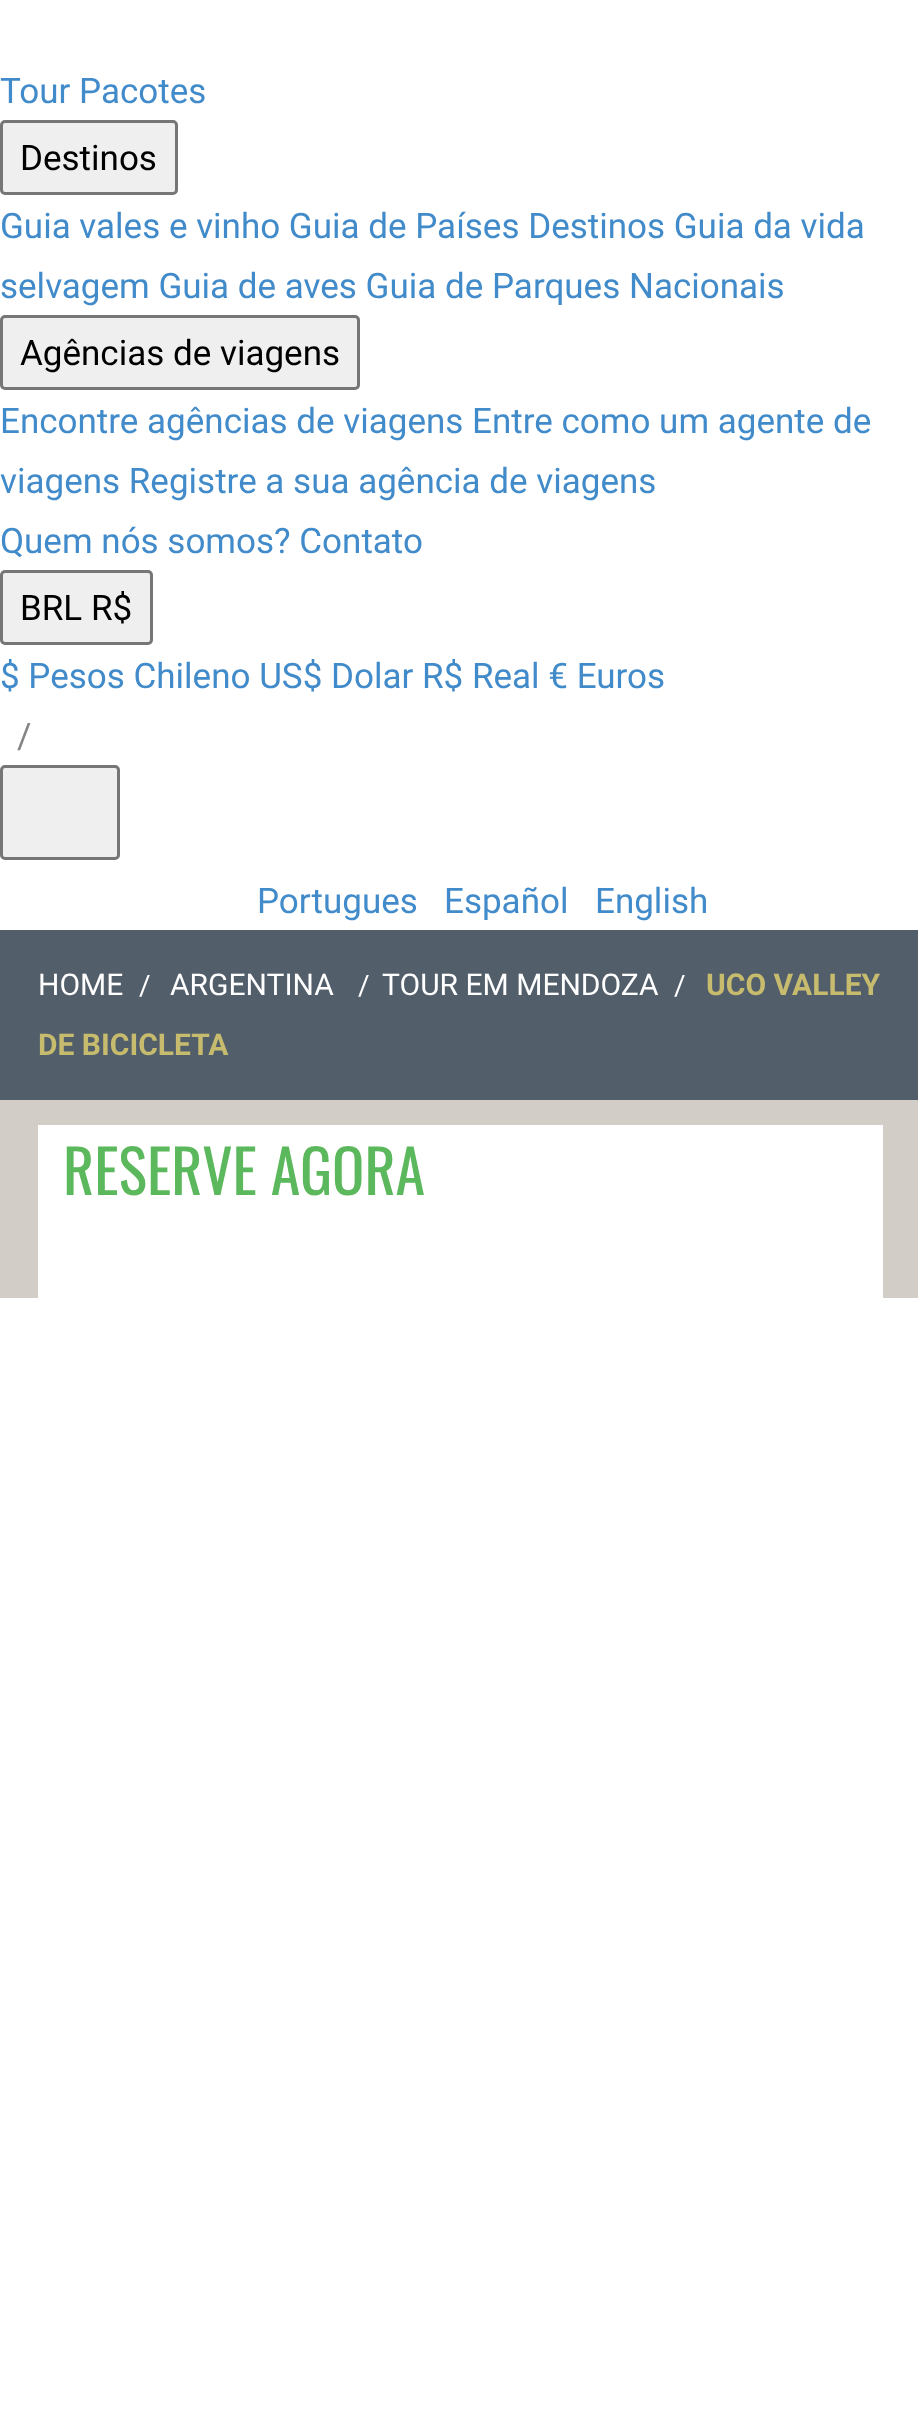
<!DOCTYPE html>
<meta charset="utf-8">
<style>body { margin: 0 } canvas { display: block }</style>
<canvas id="canvas" width="918" height="2418"></canvas>
<script type="module">
  const canvas = document.getElementById("canvas");
  const g = canvas.getContext("2d");
  g.miterLimit = 4;
  g.fontKerning = "normal";
  function drawText(s, x, y, [font, color]) {
    g.font = font;
    g.fillStyle = color;
    g.fillText(s, x, y);
  }
  function fillBox(x, y, w, h, color) {
    g.fillStyle = color;
    g.fillRect(x, y, w, h);
  }

  const s1 = ["35px Roboto", "#428BCA"];
  const s2 = ["35px Roboto", "#000000"];
  const s3 = ["35px Roboto", "#848484"];
  const s4 = ["30px Roboto", "#FFFFFF"];
  const s5 = ["28px Roboto", "#FFFFFF"];
  const s6 = ["bold 30px Roboto", "#C7BB6E"];
  const s7 = ["60px Oswald", "#5CB85C"];

  fillBox(0, 0, 918, 2418, "#FFFFFF");
  drawText("Tour Pacotes", 0, 103, s1);
  g.fillStyle = "#EFEFEF";
  g.beginPath();
  g.roundRect(1.5, 121.5, 175, 72, 3.5);
  g.fill();
  g.strokeStyle = "#767676";
  g.lineWidth = 3;
  g.stroke();
  drawText("Destinos", 20, 170, s2);
  drawText("Guia vales e vinho Guia de Países Destinos Guia da vida", 0, 238, s1);
  drawText("selvagem Guia de aves Guia de Parques Nacionais", 0, 298, s1);
  g.fillStyle = "#EFEFEF";
  g.beginPath();
  g.roundRect(1.5, 316.5, 357, 72, 3.5);
  g.fill();
  g.stroke();
  drawText("Agências de viagens", 20, 365, s2);
  drawText("Encontre agências de viagens Entre como um agente de", 0, 433, s1);
  drawText("viagens Registre a sua agência de viagens", 0, 493, s1);
  drawText("Quem nós somos? Contato", 0, 553, s1);
  g.fillStyle = "#EFEFEF";
  g.beginPath();
  g.roundRect(1.5, 571.5, 150, 72, 3.5);
  g.fill();
  g.stroke();
  drawText("BRL R$", 20, 620, s2);
  drawText("$ Pesos Chileno US$ Dolar R$ Real € Euros", 0, 688, s1);
  drawText("/", 17, 748, s3);
  g.fillStyle = "#EFEFEF";
  g.beginPath();
  g.roundRect(1.5, 766.5, 117, 92, 3.5);
  g.fill();
  g.stroke();
  drawText("Portugues", 257, 913, s1);
  drawText("Español", 444, 913, s1);
  drawText("English", 595, 913, s1);
  fillBox(0, 930, 918, 170, "#525F6B");
  drawText("HOME", 38, 995, s4);
  drawText("/", 139, 995, s5);
  drawText("ARGENTINA", 170, 995, s4);
  drawText("/", 358, 995, s5);
  drawText("TOUR EM MENDOZA", 382, 995, s4);
  drawText("/", 674, 995, s5);
  drawText("UCO VALLEY", 706, 995, s6);
  drawText("DE BICICLETA", 38, 1055, s6);
  fillBox(0, 1100, 918, 198, "#D2CDC7");
  fillBox(38, 1125, 845, 173, "#FFFFFF");
  drawText("RESERVE AGORA", 63, 1195, s7);
</script>
